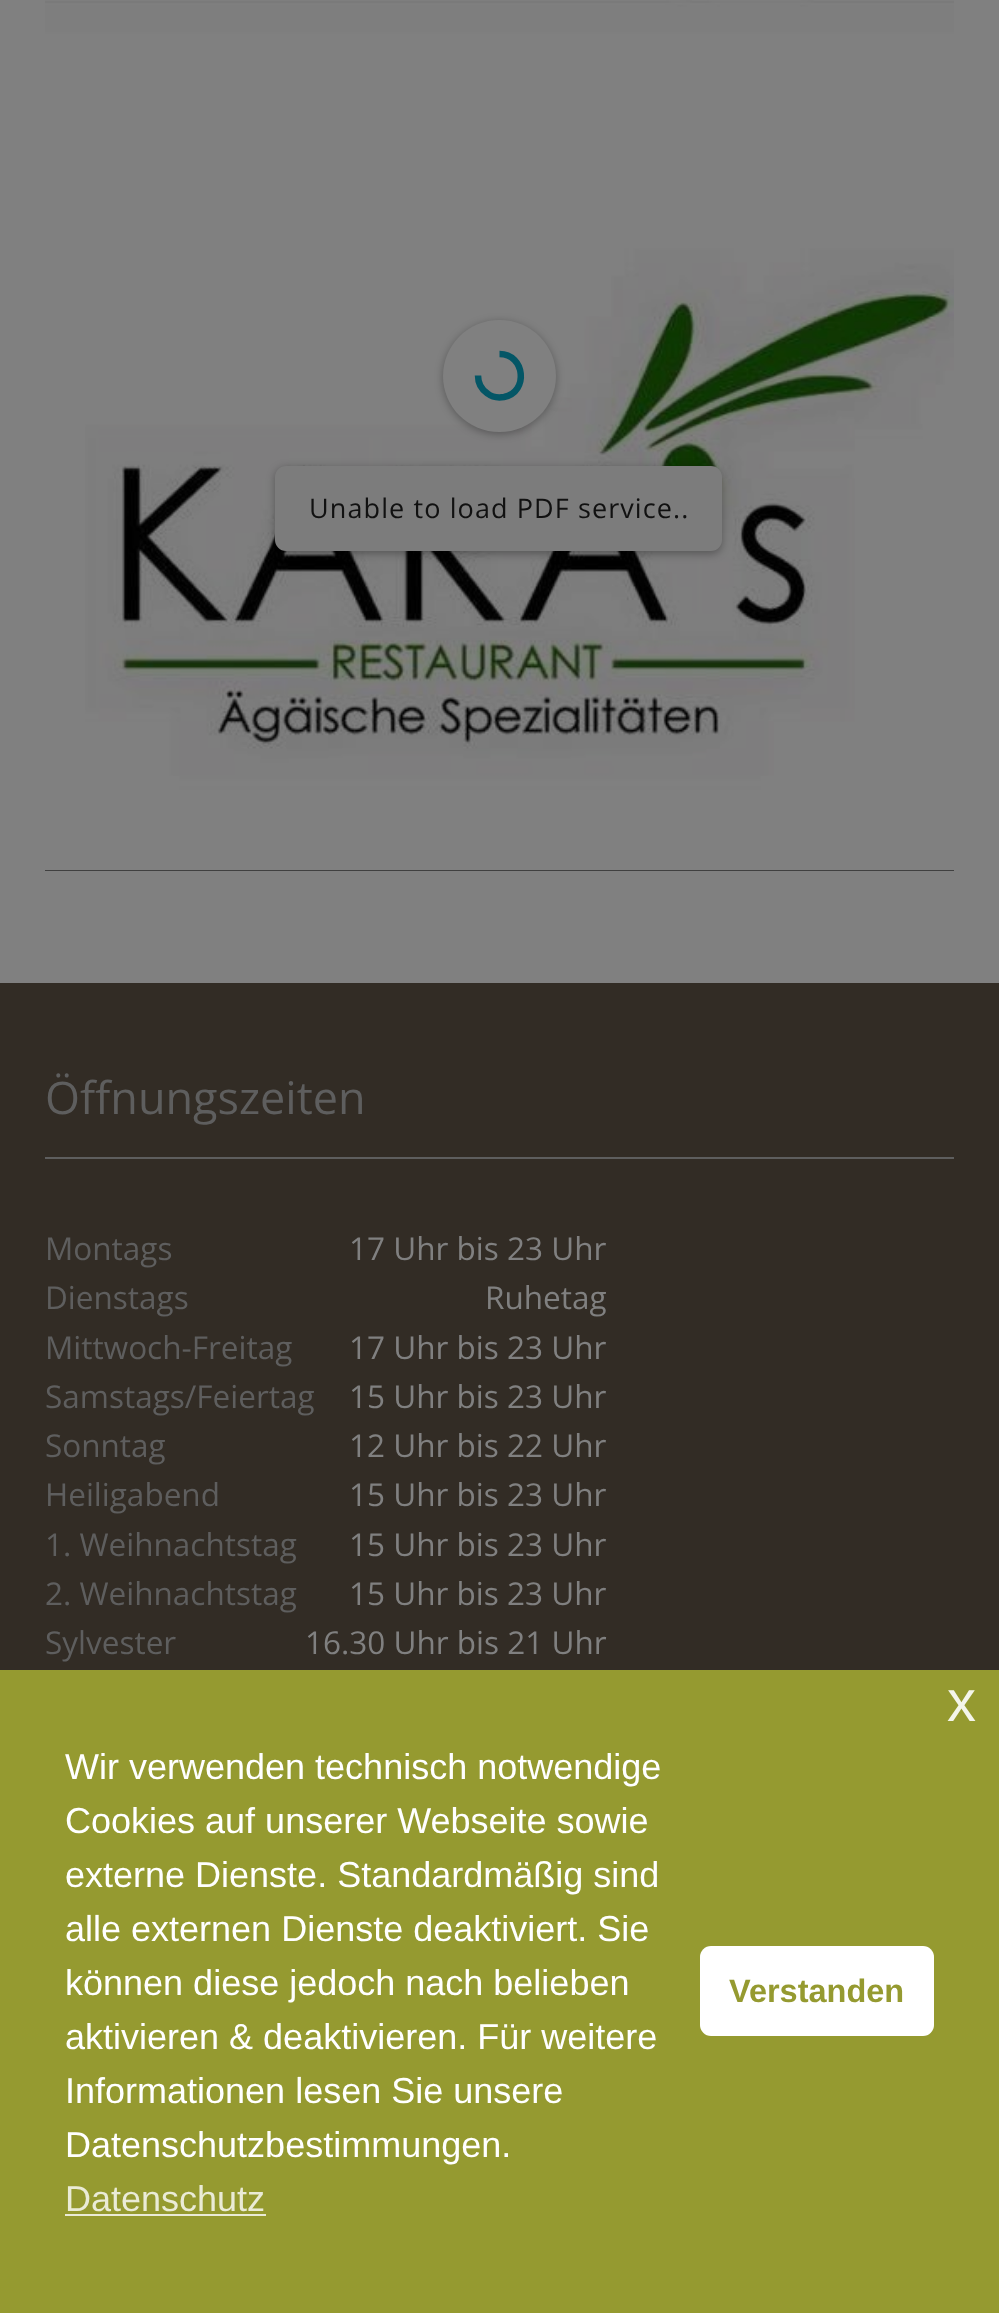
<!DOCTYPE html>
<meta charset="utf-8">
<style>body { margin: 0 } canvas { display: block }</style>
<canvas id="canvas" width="999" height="2313"></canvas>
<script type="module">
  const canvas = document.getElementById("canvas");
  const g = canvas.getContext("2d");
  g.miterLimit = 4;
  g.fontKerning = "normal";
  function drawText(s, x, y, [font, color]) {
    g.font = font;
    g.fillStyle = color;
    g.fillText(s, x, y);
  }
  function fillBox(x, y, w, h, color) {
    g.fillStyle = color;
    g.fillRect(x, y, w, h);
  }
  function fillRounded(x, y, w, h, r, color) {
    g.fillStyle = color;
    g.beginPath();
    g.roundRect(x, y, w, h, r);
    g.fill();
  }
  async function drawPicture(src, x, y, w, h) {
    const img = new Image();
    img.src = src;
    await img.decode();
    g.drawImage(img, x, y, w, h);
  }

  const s1 = ["27px Open Sans", "#111111"];
  const s2 = ["45px Open Sans", "#5E5E5E"];
  const s3 = ["31.5px Open Sans", "#5E5E5E"];
  const s4 = ["31.5px Open Sans", "#808080"];
  const s5 = ["58px Liberation Sans", "#F4F5EA"];
  const s6 = ["36px Liberation Sans", "#FFFFFF"];
  const s7 = ["36px Liberation Sans", "#EAEBD6"];
  const s8 = ["bold 32.5px Liberation Sans", "#959A30"];

  fillBox(0, 0, 999, 2313, "#808080");
  fillBox(45, 870, 909, 1, "#3C3C3C");
  await drawPicture("pic1.png", 45, 0, 909, 871);
  g.fillStyle = "rgba(0, 0, 0, 0.3)";
  g.filter = "blur(4.5px)";
  g.beginPath();
  g.roundRect(443, 322, 113, 112, 56);
  g.fill();
  g.filter = "none";
  fillRounded(443, 320, 113, 112, 56, "#808080");
  g.beginPath();
  g.moveTo(499.5, 354);
  g.bezierCurveTo(525, 354, 529, 392, 504, 397);
  g.bezierCurveTo(498, 398, 492, 397, 487.5, 393.5);
  g.bezierCurveTo(481.5, 389.5, 478, 383, 478, 375.5);
  g.strokeStyle = "#045666";
  g.lineWidth = 6.5;
  g.stroke();
  g.fillStyle = "rgba(0, 0, 0, 0.3)";
  g.filter = "blur(4.5px)";
  g.beginPath();
  g.roundRect(275, 468, 447, 86, 11);
  g.fill();
  g.filter = "none";
  fillRounded(275, 466, 447, 85, 11, "#7C7C7C");
  g.letterSpacing = "1.1px";
  drawText("Unable to load PDF service..", 309, 518, s1);
  fillBox(0, 983, 999, 687, "#322C25");
  fillBox(45, 1157, 909, 2, "#5E5E5E");
  g.letterSpacing = "0px";
  drawText("Öffnungszeiten", 45, 1114, s2);
  drawText("Montags", 45, 1260, s3);
  drawText("17 Uhr bis 23 Uhr", 349, 1260, s4);
  drawText("Dienstags", 45, 1309, s3);
  drawText("Ruhetag", 485, 1309, s4);
  drawText("Mittwoch-Freitag", 45, 1359, s3);
  drawText("17 Uhr bis 23 Uhr", 349, 1359, s4);
  drawText("Samstags/Feiertag", 45, 1408, s3);
  drawText("15 Uhr bis 23 Uhr", 349, 1408, s4);
  drawText("Sonntag", 45, 1457, s3);
  drawText("12 Uhr bis 22 Uhr", 349, 1457, s4);
  drawText("Heiligabend", 45, 1506, s3);
  drawText("15 Uhr bis 23 Uhr", 349, 1506, s4);
  drawText("1. Weihnachtstag", 45, 1556, s3);
  drawText("15 Uhr bis 23 Uhr", 349, 1556, s4);
  drawText("2. Weihnachtstag", 45, 1605, s3);
  drawText("15 Uhr bis 23 Uhr", 349, 1605, s4);
  drawText("Sylvester", 45, 1654, s3);
  drawText("16.30 Uhr bis 21 Uhr", 305, 1654, s4);
  fillBox(0, 1670, 999, 643, "#959A30");
  drawText("x", 947, 1721, s5);
  drawText("Wir verwenden technisch notwendige", 65, 1779, s6);
  drawText("Cookies auf unserer Webseite sowie", 65, 1833, s6);
  drawText("externe Dienste. Standardmäßig sind", 65, 1887, s6);
  drawText("alle externen Dienste deaktiviert. Sie", 65, 1941, s6);
  drawText("können diese jedoch nach belieben", 65, 1995, s6);
  drawText("aktivieren & deaktivieren. Für weitere", 65, 2049, s6);
  drawText("Informationen lesen Sie unsere", 65, 2103, s6);
  drawText("Datenschutzbestimmungen.", 65, 2157, s6);
  drawText("Datenschutz", 65, 2211, s7);
  fillBox(65, 2214, 201, 2, "#EAEBD6");
  fillRounded(700, 1946, 234, 90, 11, "#FFFFFF");
  drawText("Verstanden", 729, 2002, s8);
</script>
